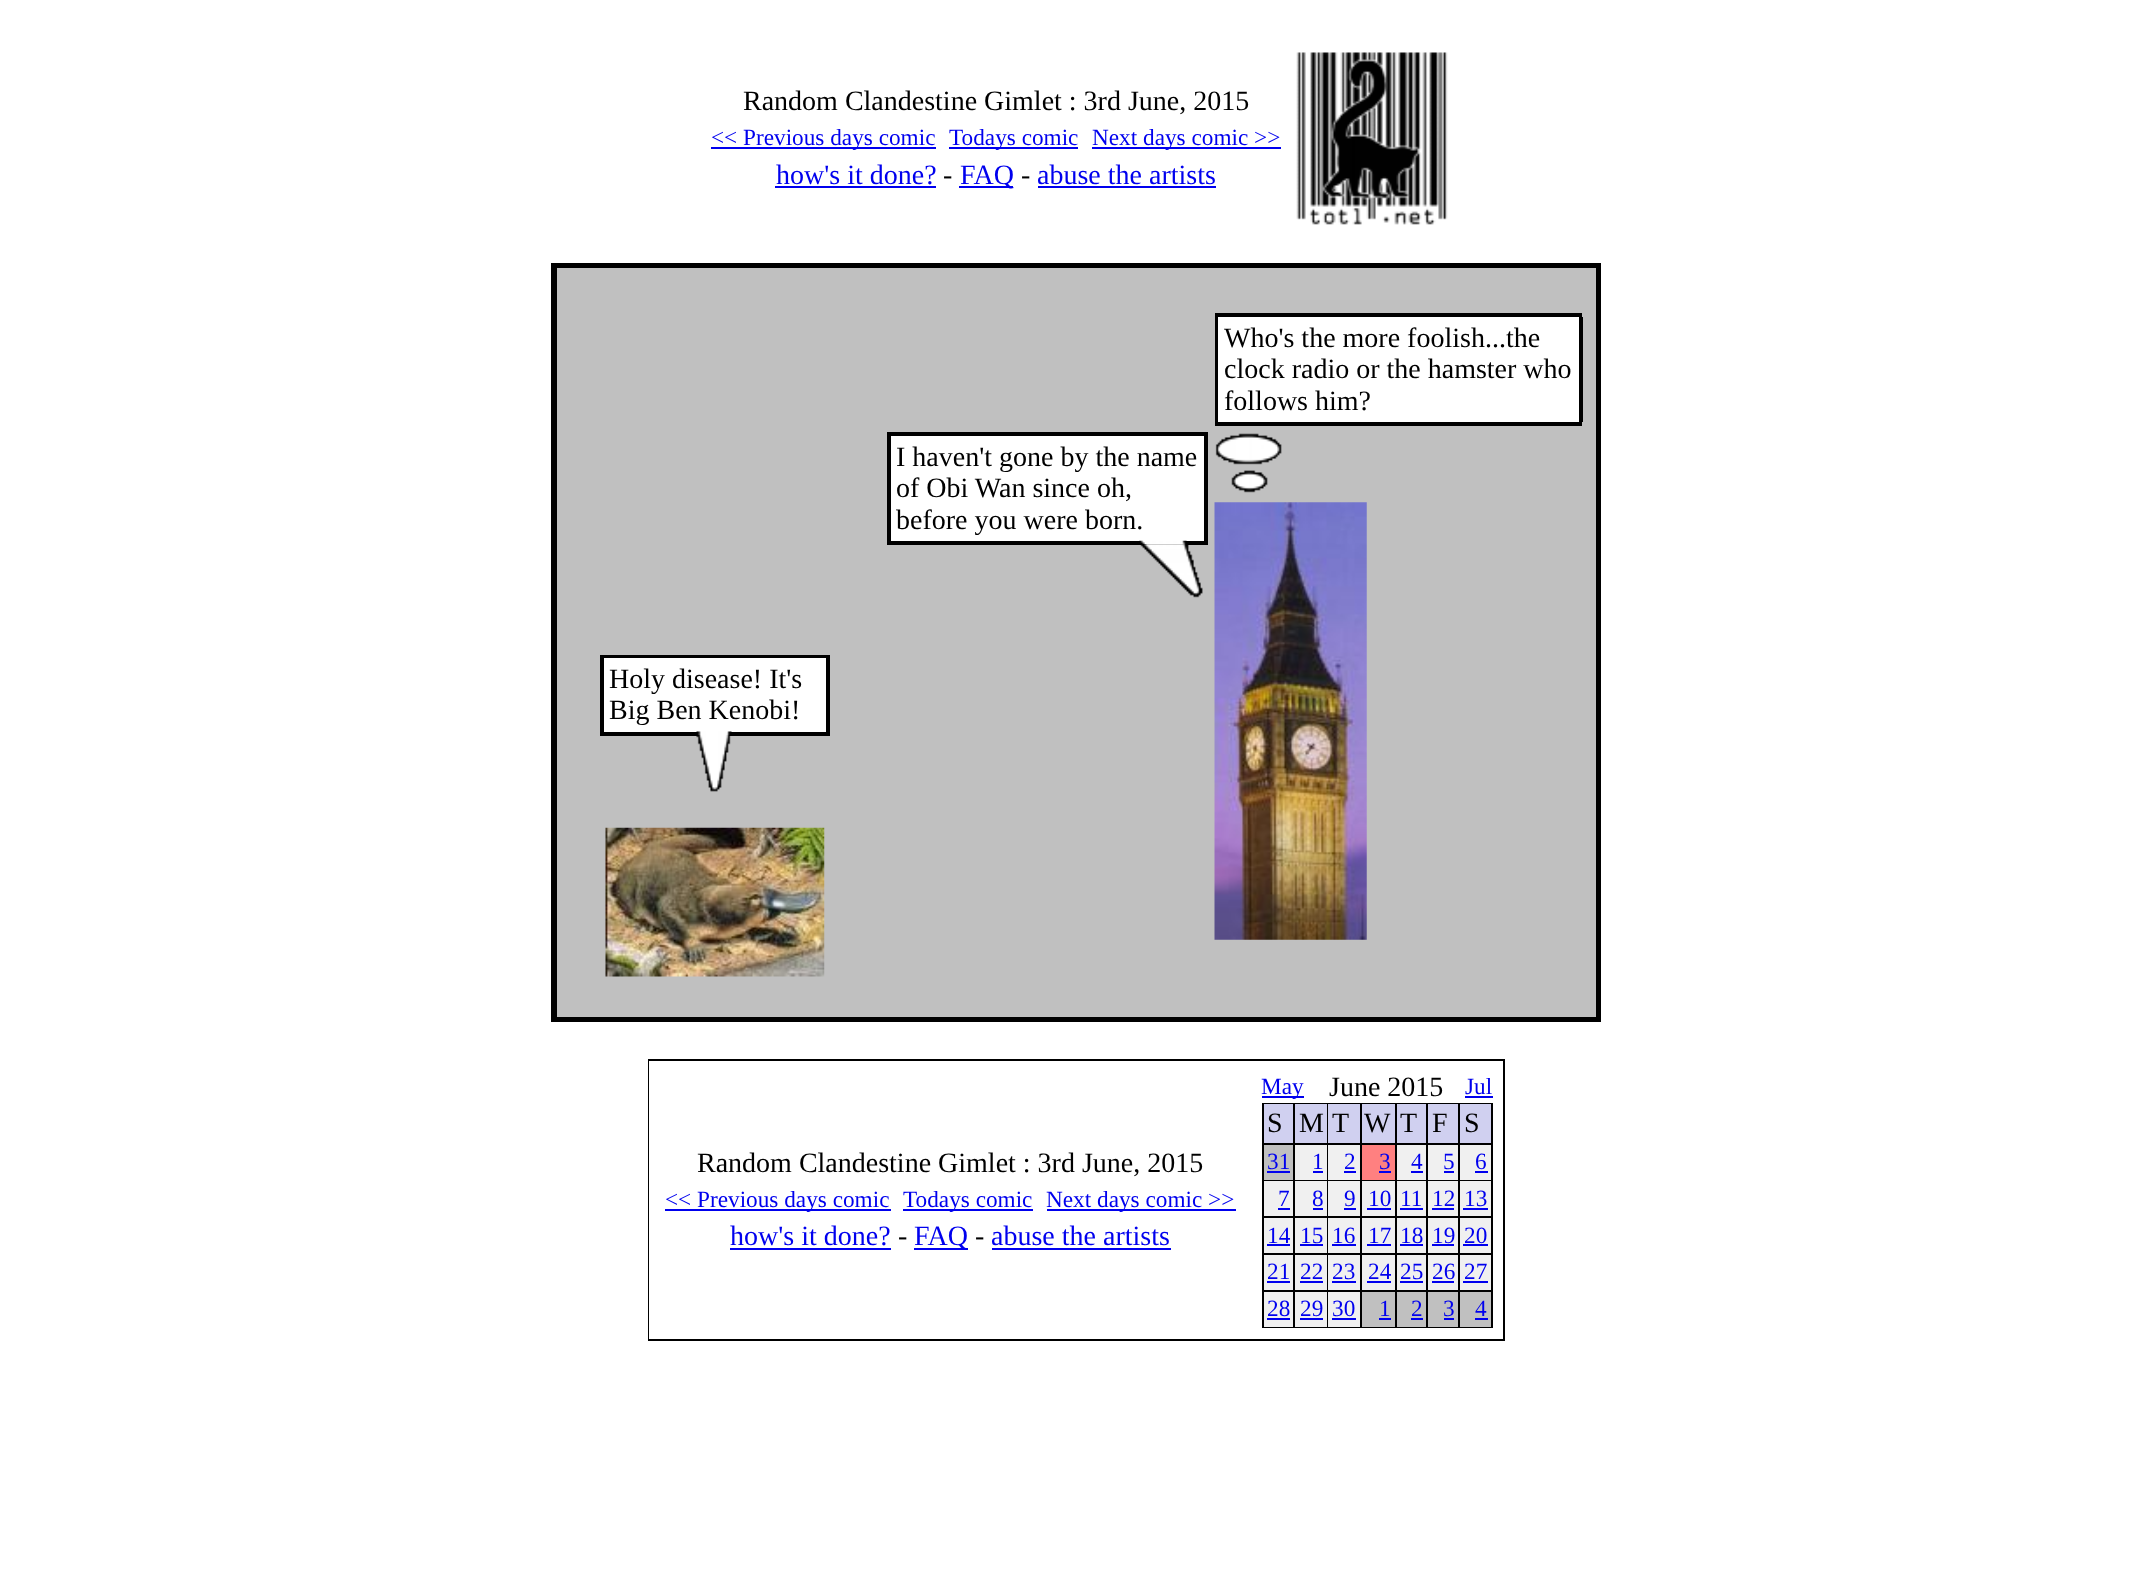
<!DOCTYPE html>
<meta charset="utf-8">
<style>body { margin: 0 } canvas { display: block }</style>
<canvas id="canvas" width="2152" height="1594"></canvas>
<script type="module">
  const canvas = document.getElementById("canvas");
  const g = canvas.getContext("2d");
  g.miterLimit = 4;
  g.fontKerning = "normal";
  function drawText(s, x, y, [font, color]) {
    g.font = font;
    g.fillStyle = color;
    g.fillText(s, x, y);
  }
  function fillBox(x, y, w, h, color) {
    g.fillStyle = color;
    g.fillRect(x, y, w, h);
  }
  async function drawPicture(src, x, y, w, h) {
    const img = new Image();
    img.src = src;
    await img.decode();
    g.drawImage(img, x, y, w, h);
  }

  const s1 = ["28px Liberation Serif", "#000000"];
  const s2 = ["23.25px Liberation Serif", "#0000EE"];
  const s3 = ["28px Liberation Serif", "#0000EE"];

  fillBox(0, 0, 2152, 1594, "#FFFFFF");
  drawText("Random Clandestine Gimlet : 3rd June, 2015", 743, 110, s1);
  fillBox(711, 147, 225, 2, "#0000EE");
  drawText("<< Previous days comic", 711, 145, s2);
  fillBox(949, 147, 129, 2, "#0000EE");
  drawText("Todays comic", 949, 145, s2);
  fillBox(1092, 147, 189, 2, "#0000EE");
  drawText("Next days comic >>", 1092, 145, s2);
  drawText("how's it done?", 776, 184, s3);
  fillBox(775, 186, 161, 2, "#0000EE");
  drawText("-", 943, 184, s1);
  fillBox(959, 186, 54, 2, "#0000EE");
  drawText("FAQ", 960, 184, s3);
  drawText("-", 1021, 184, s1);
  drawText("abuse the artists", 1037, 184, s3);
  fillBox(1038, 186, 178, 2, "#0000EE");
  await drawPicture("pic1.png", 1296, 52, 152, 173);
  fillBox(551, 263, 1050, 759, "#000000");
  fillBox(557, 268, 1039, 749, "#C0C0C0");
  fillBox(1215, 313, 367, 4, "#000000");
  fillBox(1215, 317, 3, 105, "#000000");
  fillBox(1218, 317, 361, 105, "#FFFFFF");
  drawText("Who's the more foolish...the", 1224, 347, s1);
  drawText("clock radio or the hamster who", 1224, 378, s1);
  drawText("follows him?", 1224, 410, s1);
  fillBox(1579, 317, 4, 105, "#000000");
  fillBox(1215, 422, 367, 4, "#000000");
  fillBox(887, 432, 321, 4, "#000000");
  fillBox(887, 436, 4, 105, "#000000");
  fillBox(891, 436, 313, 105, "#FFFFFF");
  drawText("I haven't gone by the name", 896, 466, s1);
  drawText("of Obi Wan since oh,", 896, 497, s1);
  drawText("before you were born.", 896, 529, s1);
  fillBox(1204, 436, 4, 105, "#000000");
  fillBox(887, 541, 321, 4, "#000000");
  await drawPicture("pic2.png", 1139, 540, 48, 5);
  await drawPicture("pic3.png", 1140, 544, 63, 54);
  await drawPicture("pic4.png", 1215, 433, 67, 60);
  await drawPicture("pic5.png", 1214, 502, 153, 438);
  fillBox(600, 655, 230, 3, "#000000");
  fillBox(600, 658, 4, 74, "#000000");
  fillBox(604, 658, 222, 74, "#FFFFFF");
  drawText("Holy disease! It's", 609, 688, s1);
  drawText("Big Ben Kenobi!", 609, 719, s1);
  fillBox(826, 658, 4, 74, "#000000");
  fillBox(600, 732, 230, 4, "#000000");
  await drawPicture("pic6.png", 696, 731, 36, 4);
  await drawPicture("pic7.png", 696, 735, 35, 57);
  await drawPicture("pic8.png", 605, 827, 220, 150);
  fillBox(648, 1059, 857, 282, "#000000");
  fillBox(649, 1061, 854, 278, "#FFFFFF");
  drawText("Random Clandestine Gimlet : 3rd June, 2015", 697, 1172, s1);
  fillBox(665, 1209, 226, 2, "#0000EE");
  drawText("<< Previous days comic", 665, 1207, s2);
  fillBox(903, 1209, 130, 2, "#0000EE");
  drawText("Todays comic", 903, 1207, s2);
  fillBox(1047, 1209, 189, 2, "#0000EE");
  drawText("Next days comic >>", 1046, 1207, s2);
  drawText("how's it done?", 730, 1245, s3);
  fillBox(730, 1248, 161, 2, "#0000EE");
  drawText("-", 898, 1245, s1);
  fillBox(914, 1248, 54, 2, "#0000EE");
  drawText("FAQ", 914, 1245, s3);
  drawText("-", 975, 1245, s1);
  drawText("abuse the artists", 991, 1245, s3);
  fillBox(992, 1248, 179, 2, "#0000EE");
  fillBox(1262, 1096, 42, 2, "#0000EE");
  drawText("May", 1261, 1094, s2);
  drawText("June 2015", 1329, 1096, s1);
  drawText("Jul", 1465, 1094, s2);
  fillBox(1465, 1096, 28, 2, "#0000EE");
  fillBox(1262, 1103, 231, 225, "#000000");
  fillBox(1264, 1104, 29, 39, "#D0D0F0");
  drawText("S", 1267, 1132, s1);
  fillBox(1295, 1104, 32, 39, "#D0D0F0");
  drawText("M", 1299, 1132, s1);
  fillBox(1328, 1104, 32, 39, "#D0D0F0");
  drawText("T", 1332, 1132, s1);
  fillBox(1362, 1104, 33, 39, "#D0D0F0");
  drawText("W", 1364, 1132, s1);
  fillBox(1397, 1104, 29, 39, "#D0D0F0");
  drawText("T", 1400, 1132, s1);
  fillBox(1428, 1104, 30, 39, "#D0D0F0");
  drawText("F", 1432, 1132, s1);
  fillBox(1460, 1104, 31, 39, "#D0D0F0");
  drawText("S", 1464, 1132, s1);
  fillBox(1264, 1145, 29, 35, "#C0C0C0");
  drawText("31", 1267, 1169, s2);
  fillBox(1267, 1171, 23, 2, "#0000EE");
  fillBox(1295, 1145, 32, 35, "#F0F0F0");
  drawText("1", 1312, 1169, s2);
  fillBox(1313, 1171, 10, 2, "#0000EE");
  fillBox(1328, 1145, 32, 35, "#F0F0F0");
  drawText("2", 1344, 1169, s2);
  fillBox(1344, 1171, 12, 2, "#0000EE");
  fillBox(1362, 1145, 33, 35, "#FF8080");
  drawText("3", 1379, 1169, s2);
  fillBox(1379, 1171, 12, 2, "#0000EE");
  fillBox(1397, 1145, 29, 35, "#F0F0F0");
  drawText("4", 1411, 1169, s2);
  fillBox(1411, 1171, 12, 2, "#0000EE");
  fillBox(1428, 1145, 30, 35, "#F0F0F0");
  drawText("5", 1443, 1169, s2);
  fillBox(1444, 1171, 10, 2, "#0000EE");
  fillBox(1460, 1145, 31, 35, "#F0F0F0");
  drawText("6", 1475, 1169, s2);
  fillBox(1475, 1171, 13, 2, "#0000EE");
  fillBox(1264, 1181, 29, 35, "#F0F0F0");
  drawText("7", 1278, 1206, s2);
  fillBox(1278, 1208, 12, 2, "#0000EE");
  fillBox(1295, 1181, 32, 35, "#F0F0F0");
  drawText("8", 1312, 1206, s2);
  fillBox(1313, 1208, 10, 2, "#0000EE");
  fillBox(1328, 1181, 32, 35, "#F0F0F0");
  drawText("9", 1344, 1206, s2);
  fillBox(1344, 1208, 12, 2, "#0000EE");
  fillBox(1362, 1181, 33, 35, "#F0F0F0");
  drawText("10", 1368, 1206, s2);
  fillBox(1367, 1208, 24, 2, "#0000EE");
  fillBox(1397, 1181, 29, 35, "#F0F0F0");
  drawText("11", 1400, 1206, s2);
  fillBox(1400, 1208, 23, 2, "#0000EE");
  fillBox(1428, 1181, 30, 35, "#F0F0F0");
  drawText("12", 1432, 1206, s2);
  fillBox(1432, 1208, 22, 2, "#0000EE");
  fillBox(1460, 1181, 31, 35, "#F0F0F0");
  drawText("13", 1464, 1206, s2);
  fillBox(1463, 1208, 25, 2, "#0000EE");
  fillBox(1264, 1218, 29, 35, "#F0F0F0");
  drawText("14", 1267, 1243, s2);
  fillBox(1267, 1244, 23, 2, "#0000EE");
  fillBox(1295, 1218, 32, 35, "#F0F0F0");
  drawText("15", 1300, 1243, s2);
  fillBox(1300, 1244, 23, 2, "#0000EE");
  fillBox(1328, 1218, 32, 35, "#F0F0F0");
  drawText("16", 1332, 1243, s2);
  fillBox(1332, 1244, 24, 2, "#0000EE");
  fillBox(1362, 1218, 33, 35, "#F0F0F0");
  drawText("17", 1368, 1243, s2);
  fillBox(1367, 1244, 24, 2, "#0000EE");
  fillBox(1397, 1218, 29, 35, "#F0F0F0");
  drawText("18", 1400, 1243, s2);
  fillBox(1400, 1244, 23, 2, "#0000EE");
  fillBox(1428, 1218, 30, 35, "#F0F0F0");
  drawText("19", 1432, 1243, s2);
  fillBox(1432, 1244, 22, 2, "#0000EE");
  fillBox(1460, 1218, 31, 35, "#F0F0F0");
  drawText("20", 1464, 1243, s2);
  fillBox(1463, 1244, 25, 2, "#0000EE");
  fillBox(1264, 1255, 29, 35, "#F0F0F0");
  drawText("21", 1267, 1279, s2);
  fillBox(1267, 1281, 23, 2, "#0000EE");
  fillBox(1295, 1255, 32, 35, "#F0F0F0");
  drawText("22", 1300, 1279, s2);
  fillBox(1300, 1281, 23, 2, "#0000EE");
  fillBox(1328, 1255, 32, 35, "#F0F0F0");
  drawText("23", 1332, 1279, s2);
  fillBox(1332, 1281, 24, 2, "#0000EE");
  fillBox(1362, 1255, 33, 35, "#F0F0F0");
  drawText("24", 1368, 1279, s2);
  fillBox(1367, 1281, 24, 2, "#0000EE");
  fillBox(1397, 1255, 29, 35, "#F0F0F0");
  drawText("25", 1400, 1279, s2);
  fillBox(1400, 1281, 23, 2, "#0000EE");
  fillBox(1428, 1255, 30, 35, "#F0F0F0");
  drawText("26", 1432, 1279, s2);
  fillBox(1432, 1281, 22, 2, "#0000EE");
  fillBox(1460, 1255, 31, 35, "#F0F0F0");
  drawText("27", 1464, 1279, s2);
  fillBox(1463, 1281, 25, 2, "#0000EE");
  fillBox(1264, 1292, 29, 35, "#F0F0F0");
  drawText("28", 1267, 1316, s2);
  fillBox(1267, 1318, 23, 2, "#0000EE");
  fillBox(1295, 1292, 32, 35, "#F0F0F0");
  drawText("29", 1300, 1316, s2);
  fillBox(1300, 1318, 23, 2, "#0000EE");
  fillBox(1328, 1292, 32, 35, "#F0F0F0");
  drawText("30", 1332, 1316, s2);
  fillBox(1332, 1318, 24, 2, "#0000EE");
  fillBox(1362, 1292, 33, 35, "#C0C0C0");
  drawText("1", 1379, 1316, s2);
  fillBox(1379, 1318, 12, 2, "#0000EE");
  fillBox(1397, 1292, 29, 35, "#C0C0C0");
  drawText("2", 1411, 1316, s2);
  fillBox(1411, 1318, 12, 2, "#0000EE");
  fillBox(1428, 1292, 30, 35, "#C0C0C0");
  drawText("3", 1443, 1316, s2);
  fillBox(1444, 1318, 10, 2, "#0000EE");
  fillBox(1460, 1292, 31, 35, "#C0C0C0");
  drawText("4", 1475, 1316, s2);
  fillBox(1475, 1318, 13, 2, "#0000EE");
</script>
